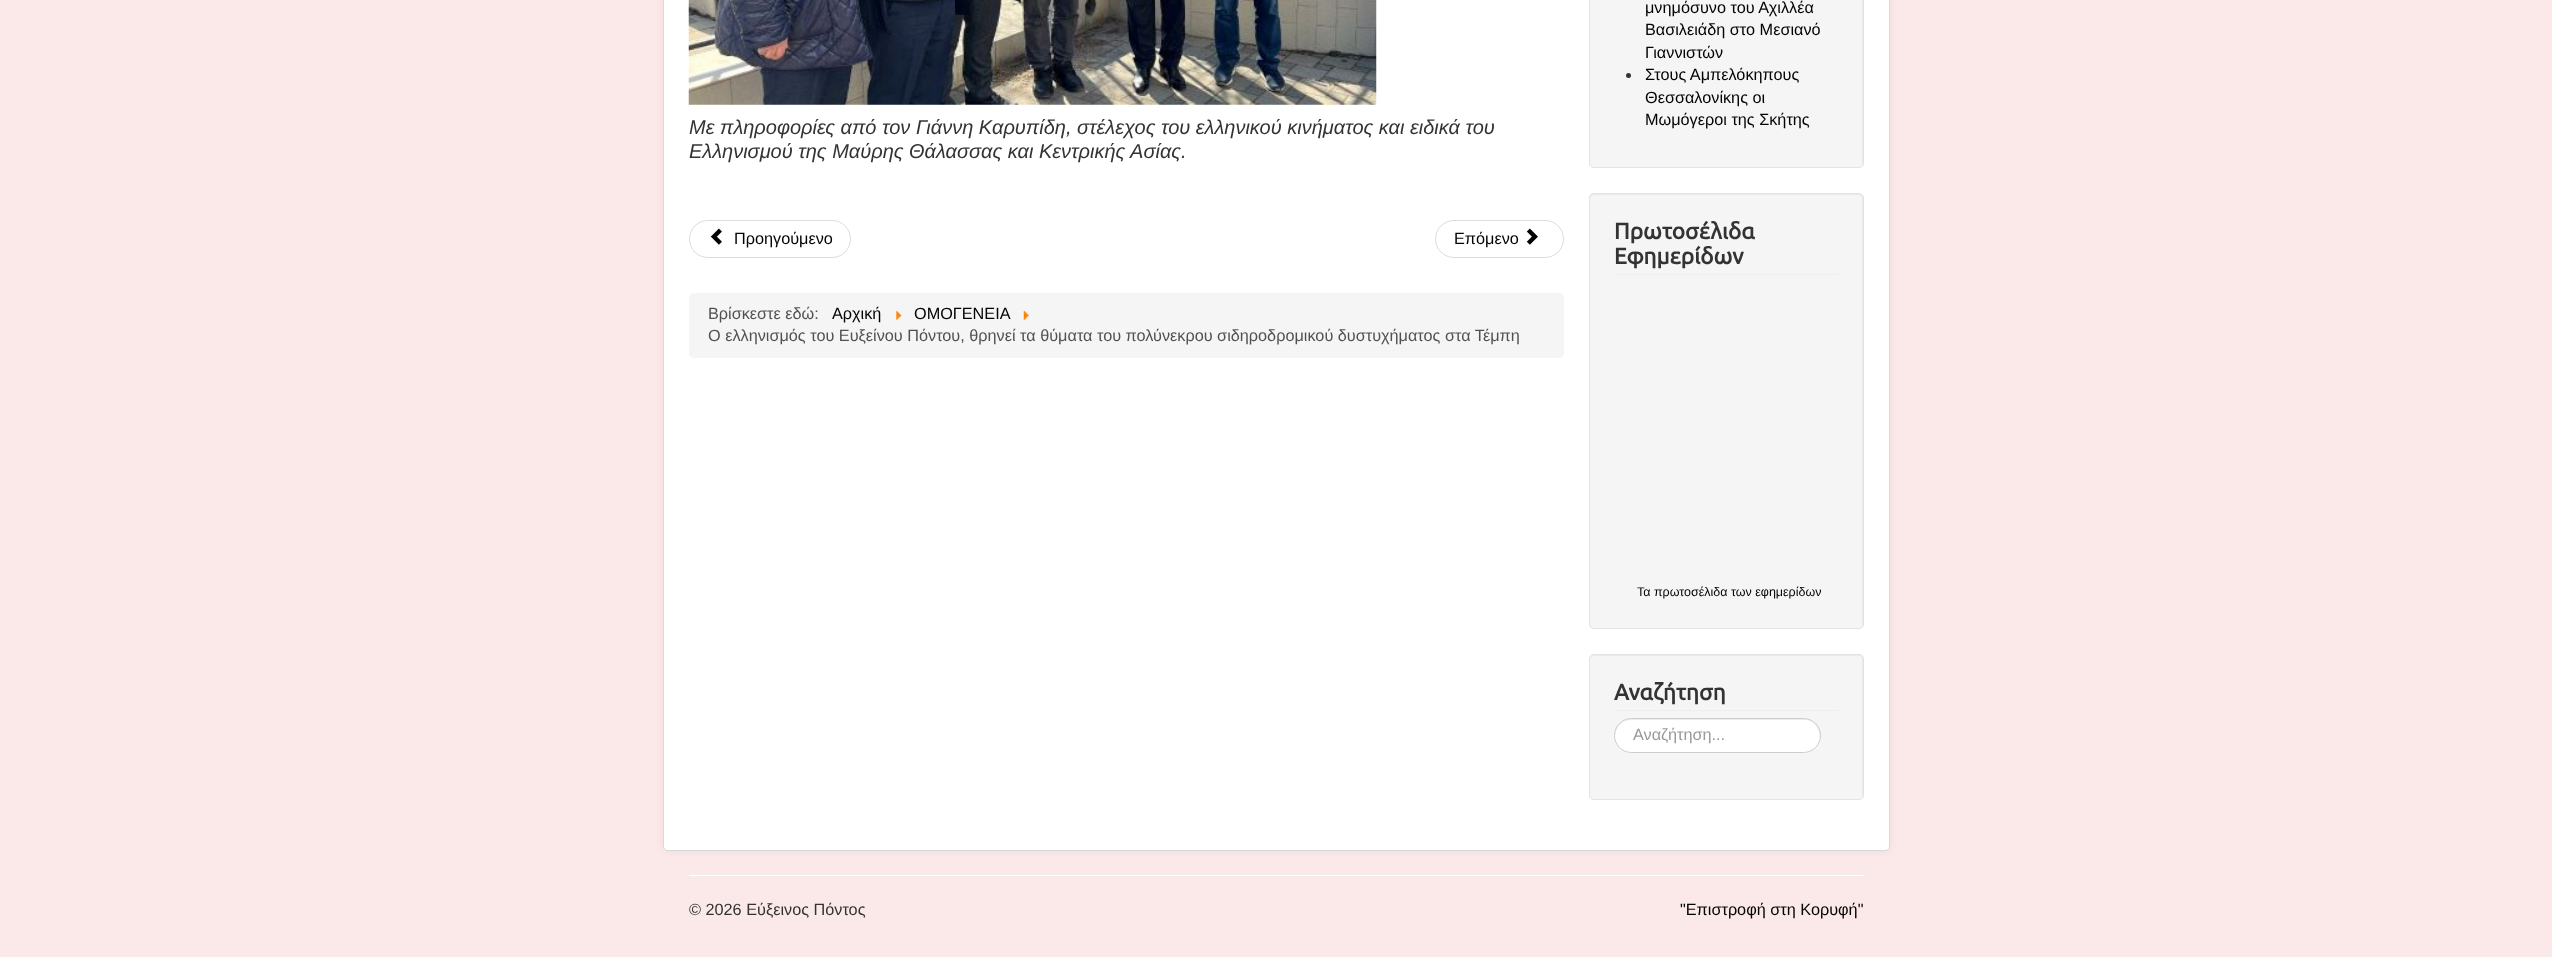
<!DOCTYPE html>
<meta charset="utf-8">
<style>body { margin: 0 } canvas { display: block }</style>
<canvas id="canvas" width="2552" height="957"></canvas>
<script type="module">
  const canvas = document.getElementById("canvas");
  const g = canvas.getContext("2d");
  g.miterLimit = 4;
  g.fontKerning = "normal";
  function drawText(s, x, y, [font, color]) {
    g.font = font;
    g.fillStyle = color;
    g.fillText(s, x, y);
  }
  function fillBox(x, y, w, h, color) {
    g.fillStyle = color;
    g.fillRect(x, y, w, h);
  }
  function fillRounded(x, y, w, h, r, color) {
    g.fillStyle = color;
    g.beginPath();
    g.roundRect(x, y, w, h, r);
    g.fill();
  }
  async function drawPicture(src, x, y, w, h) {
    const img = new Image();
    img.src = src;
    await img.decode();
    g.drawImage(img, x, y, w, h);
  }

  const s1 = ["italic 20px Liberation Sans", "#333333"];
  const s2 = ["16.25px Liberation Sans", "#030303"];
  const s3 = ["16.25px Liberation Sans", "#515151"];
  const s4 = ["bold 22.5px Ubuntu", "#333333"];
  const s5 = ["12.5px Liberation Sans", "#030303"];
  const s6 = ["16.25px Liberation Sans", "#999999"];
  const s7 = ["16.25px Liberation Sans", "#333333"];

  fillBox(0, 0, 2552, 957, "#FAE9E8");
  g.fillStyle = "rgba(0, 0, 0, 0.05)";
  g.filter = "blur(4px)";
  g.beginPath();
  g.roundRect(663, -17, 1227, 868, 5);
  g.fill();
  g.filter = "none";
  fillRounded(663, -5, 1227, 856, 5, "#FFFFFF");
  g.beginPath();
  g.roundRect(663.5, -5.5, 1226, 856, 4.5);
  g.strokeStyle = "rgba(0, 0, 0, 0.15)";
  g.stroke();
  await drawPicture("pic1.png", 688, 0, 689, 105);
  drawText("Με πληροφορίες από τον Γιάννη Καρυπίδη, στέλεχος του ελληνικού κινήματος και ειδικά του", 689, 134, s1);
  drawText("Ελληνισμού της Μαύρης Θάλασσας και Κεντρικής Ασίας.", 689, 158, s1);
  g.beginPath();
  g.roundRect(689.5, 220.5, 161, 37, 18.5);
  g.strokeStyle = "#DDDDDD";
  g.stroke();
  await drawPicture("pic2.png", 710, 228, 12, 17);
  drawText("Προηγούμενο", 734, 244, s2);
  g.beginPath();
  g.roundRect(1435.5, 220.5, 128, 37, 18.5);
  g.stroke();
  drawText("Επόμενο", 1454, 244, s2);
  await drawPicture("pic3.png", 1526, 228, 12, 17);
  fillRounded(689, 293, 875, 65, 5, "#F5F5F5");
  drawText("Βρίσκεστε εδώ:", 708, 319, s3);
  drawText("Αρχική", 832, 319, s2);
  await drawPicture("pic4.png", 896, 310, 6, 10);
  drawText("ΟΜΟΓΕΝΕΙΑ", 914, 319, s2);
  await drawPicture("pic5.png", 1023, 310, 6, 10);
  drawText("Ο ελληνισμός του Ευξείνου Πόντου, θρηνεί τα θύματα του πολύνεκρου σιδηροδρομικού δυστυχήματος στα Τέμπη", 708, 341, s3);
  fillRounded(1589, -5, 275, 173, 5, "#F5F5F5");
  g.fillStyle = "#E9E9E9";
  g.beginPath();
  g.moveTo(1594, -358);
  g.lineTo(1859, -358);
  g.bezierCurveTo(1861, -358, 1862, -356, 1862, -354);
  g.lineTo(1862, 165);
  g.bezierCurveTo(1863, 164, 1863, 163, 1863, 162);
  g.lineTo(1863, -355);
  g.bezierCurveTo(1863, -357, 1861, -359, 1859, -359);
  g.lineTo(1594, -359);
  g.bezierCurveTo(1592, -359, 1590, -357, 1590, -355);
  g.lineTo(1590, -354);
  g.bezierCurveTo(1590, -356, 1592, -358, 1594, -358);
  g.closePath();
  g.fill();
  g.beginPath();
  g.roundRect(1589.5, -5.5, 274, 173, 4.5);
  g.strokeStyle = "#E3E3E3";
  g.stroke();
  drawText("μνημόσυνο του Αχιλλέα", 1645, 13, s2);
  drawText("Βασιλειάδη στο Μεσιανό", 1645, 35, s2);
  drawText("Γιαννιστών", 1645, 58, s2);
  g.fillStyle = "#333333";
  g.beginPath();
  g.arc(1628.5, 75.5, 2.5, 0, Math.PI * 2);
  g.fill();
  drawText("Στους Αμπελόκηπους", 1645, 80, s2);
  drawText("Θεσσαλονίκης οι", 1645, 103, s2);
  drawText("Μωμόγεροι της Σκήτης", 1645, 125, s2);
  fillRounded(1589, 193, 275, 436, 5, "#F5F5F5");
  g.fillStyle = "#E9E9E9";
  g.beginPath();
  g.moveTo(1594, 195);
  g.lineTo(1859, 195);
  g.bezierCurveTo(1861, 195, 1862, 197, 1862, 199);
  g.lineTo(1862, 625);
  g.lineTo(1862, 627);
  g.bezierCurveTo(1862, 626, 1863, 625, 1863, 624);
  g.lineTo(1863, 198);
  g.bezierCurveTo(1863, 196, 1861, 194, 1859, 194);
  g.lineTo(1594, 194);
  g.bezierCurveTo(1592, 194, 1590, 196, 1590, 198);
  g.lineTo(1590, 199);
  g.bezierCurveTo(1590, 197, 1592, 195, 1594, 195);
  g.closePath();
  g.fill();
  g.beginPath();
  g.roundRect(1589.5, 193.5, 274, 435, 4.5);
  g.stroke();
  fillBox(1614, 274, 225, 1, "#EEEEEE");
  drawText("Πρωτοσέλιδα", 1614, 239, s4);
  drawText("Εφημερίδων", 1614, 264, s4);
  drawText("Τα πρωτοσέλιδα των εφημερίδων", 1637, 596, s5);
  fillRounded(1589, 654, 275, 146, 5, "#F5F5F5");
  g.fillStyle = "#E9E9E9";
  g.beginPath();
  g.moveTo(1594, 656);
  g.lineTo(1859, 656);
  g.bezierCurveTo(1861, 656, 1862, 658, 1862, 660);
  g.lineTo(1862, 796);
  g.lineTo(1862, 798);
  g.bezierCurveTo(1862, 797, 1863, 796, 1863, 795);
  g.lineTo(1863, 659);
  g.bezierCurveTo(1863, 657, 1861, 655, 1859, 655);
  g.lineTo(1594, 655);
  g.bezierCurveTo(1592, 655, 1590, 657, 1590, 659);
  g.lineTo(1590, 660);
  g.bezierCurveTo(1590, 658, 1592, 656, 1594, 656);
  g.closePath();
  g.fill();
  g.beginPath();
  g.roundRect(1589.5, 654.5, 274, 145, 4.5);
  g.stroke();
  fillBox(1614, 710, 225, 1, "#EEEEEE");
  drawText("Αναζήτηση", 1614, 700, s4);
  fillRounded(1614, 718, 207, 35, 17.5, "#FFFFFF");
  g.fillStyle = "#ECECEC";
  g.beginPath();
  g.moveTo(1631, 720);
  g.lineTo(1807, 720);
  g.bezierCurveTo(1817, 722, 1821, 733, 1819, 742);
  g.bezierCurveTo(1819, 740, 1820, 737, 1820, 735);
  g.bezierCurveTo(1820, 726, 1813, 719, 1804, 719);
  g.lineTo(1631, 719);
  g.bezierCurveTo(1622, 719, 1615, 726, 1615, 735);
  g.lineTo(1615, 738);
  g.bezierCurveTo(1615, 729, 1620, 720, 1631, 720);
  g.closePath();
  g.fill();
  g.beginPath();
  g.roundRect(1614.5, 718.5, 206, 34, 17);
  g.strokeStyle = "#CCCCCC";
  g.stroke();
  drawText("Αναζήτηση...", 1633, 740, s6);
  fillBox(689, 874, 1175, 1, "#EEEEEE");
  fillBox(689, 875, 1175, 1, "#FFFFFF");
  drawText("© 2026 Εύξεινος Πόντος", 689, 915, s7);
  drawText("\"Επιστροφή στη Κορυφή\"", 1680, 915, s2);
</script>
